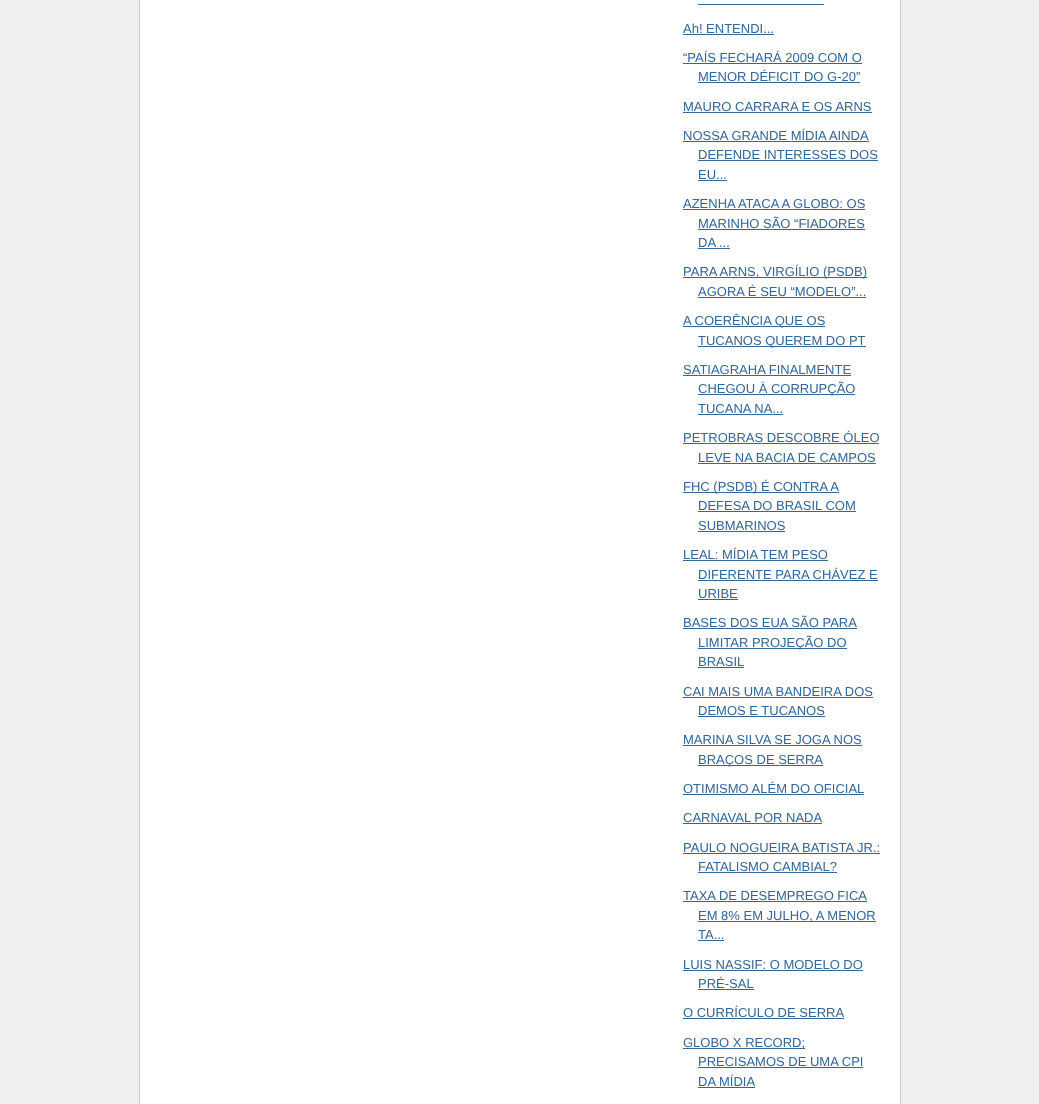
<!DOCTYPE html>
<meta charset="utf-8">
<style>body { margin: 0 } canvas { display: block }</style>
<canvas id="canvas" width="1039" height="1104"></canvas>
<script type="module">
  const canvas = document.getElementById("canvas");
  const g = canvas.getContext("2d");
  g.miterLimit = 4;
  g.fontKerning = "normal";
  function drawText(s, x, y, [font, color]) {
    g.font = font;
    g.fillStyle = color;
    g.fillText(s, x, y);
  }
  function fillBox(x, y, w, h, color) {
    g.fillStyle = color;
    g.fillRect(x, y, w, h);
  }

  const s1 = ["13px Liberation Sans", "#336699"];

  fillBox(0, 0, 1039, 1104, "#EFEFEF");
  fillBox(140, 0, 760, 1104, "#FFFFFF");
  fillBox(900, 0, 1, 1104, "#CCCCCC");
  fillBox(139, 0, 1, 1104, "#CCCCCC");
  fillBox(698, 4, 126, 1, "#336699");
  drawText("Ah! ENTENDI...", 683, 33, s1);
  fillBox(683, 34, 91, 1, "#336699");
  drawText("“PAÍS FECHARÁ 2009 COM O", 683, 62, s1);
  fillBox(683, 63, 179, 1, "#336699");
  drawText("MENOR DÉFICIT DO G-20”", 698, 81, s1);
  fillBox(698, 82, 162, 1, "#336699");
  drawText("MAURO CARRARA E OS ARNS", 683, 111, s1);
  fillBox(683, 112, 189, 1, "#336699");
  drawText("NOSSA GRANDE MÍDIA AINDA", 683, 140, s1);
  fillBox(683, 141, 186, 1, "#336699");
  drawText("DEFENDE INTERESSES DOS", 698, 159, s1);
  fillBox(698, 160, 180, 1, "#336699");
  drawText("EU...", 698, 179, s1);
  fillBox(698, 180, 29, 1, "#336699");
  drawText("AZENHA ATACA A GLOBO: OS", 683, 208, s1);
  fillBox(683, 209, 182, 1, "#336699");
  drawText("MARINHO SÃO “FIADORES", 698, 228, s1);
  fillBox(698, 229, 167, 1, "#336699");
  drawText("DA ...", 698, 247, s1);
  fillBox(698, 248, 32, 1, "#336699");
  fillBox(683, 277, 184, 1, "#336699");
  drawText("PARA ARNS, VIRGÍLIO (PSDB)", 683, 276, s1);
  drawText("AGORA É SEU “MODELO”...", 698, 296, s1);
  fillBox(698, 297, 168, 1, "#336699");
  fillBox(683, 326, 142, 1, "#336699");
  drawText("A COERÊNCIA QUE OS", 683, 325, s1);
  fillBox(698, 346, 168, 1, "#336699");
  drawText("TUCANOS QUEREM DO PT", 698, 345, s1);
  drawText("SATIAGRAHA FINALMENTE", 683, 374, s1);
  fillBox(683, 375, 168, 1, "#336699");
  fillBox(698, 394, 157, 1, "#336699");
  drawText("CHEGOU À CORRUPÇÃO", 698, 393, s1);
  drawText("TUCANA NA...", 698, 413, s1);
  fillBox(698, 414, 85, 1, "#336699");
  drawText("PETROBRAS DESCOBRE ÓLEO", 683, 442, s1);
  fillBox(683, 443, 196, 1, "#336699");
  drawText("LEVE NA BACIA DE CAMPOS", 698, 462, s1);
  fillBox(698, 463, 178, 1, "#336699");
  fillBox(683, 492, 156, 1, "#336699");
  drawText("FHC (PSDB) É CONTRA A", 683, 491, s1);
  drawText("DEFESA DO BRASIL COM", 698, 510, s1);
  fillBox(698, 511, 158, 1, "#336699");
  drawText("SUBMARINOS", 698, 530, s1);
  fillBox(698, 531, 87, 1, "#336699");
  drawText("LEAL: MÍDIA TEM PESO", 683, 559, s1);
  fillBox(683, 560, 145, 1, "#336699");
  drawText("DIFERENTE PARA CHÁVEZ E", 698, 579, s1);
  fillBox(698, 580, 180, 1, "#336699");
  drawText("URIBE", 698, 598, s1);
  fillBox(698, 599, 40, 1, "#336699");
  drawText("BASES DOS EUA SÃO PARA", 683, 627, s1);
  fillBox(683, 628, 174, 1, "#336699");
  fillBox(698, 648, 149, 1, "#336699");
  drawText("LIMITAR PROJEÇÃO DO", 698, 647, s1);
  drawText("BRASIL", 698, 666, s1);
  fillBox(698, 667, 46, 1, "#336699");
  drawText("CAI MAIS UMA BANDEIRA DOS", 683, 696, s1);
  fillBox(683, 697, 190, 1, "#336699");
  drawText("DEMOS E TUCANOS", 698, 715, s1);
  fillBox(698, 716, 127, 1, "#336699");
  drawText("MARINA SILVA SE JOGA NOS", 683, 744, s1);
  fillBox(683, 745, 179, 1, "#336699");
  fillBox(698, 765, 125, 1, "#336699");
  drawText("BRAÇOS DE SERRA", 698, 764, s1);
  drawText("OTIMISMO ALÉM DO OFICIAL", 683, 793, s1);
  fillBox(683, 794, 181, 1, "#336699");
  drawText("CARNAVAL POR NADA", 683, 822, s1);
  fillBox(683, 823, 139, 1, "#336699");
  drawText("PAULO NOGUEIRA BATISTA JR.:", 683, 852, s1);
  fillBox(683, 853, 197, 1, "#336699");
  drawText("FATALISMO CAMBIAL?", 698, 871, s1);
  fillBox(698, 872, 139, 1, "#336699");
  drawText("TAXA DE DESEMPREGO FICA", 683, 900, s1);
  fillBox(683, 901, 184, 1, "#336699");
  fillBox(698, 921, 178, 1, "#336699");
  drawText("EM 8% EM JULHO, A MENOR", 698, 920, s1);
  drawText("TA...", 698, 939, s1);
  fillBox(698, 940, 26, 1, "#336699");
  drawText("LUIS NASSIF: O MODELO DO", 683, 969, s1);
  fillBox(683, 970, 180, 1, "#336699");
  drawText("PRÉ-SAL", 698, 988, s1);
  fillBox(698, 989, 56, 1, "#336699");
  drawText("O CURRÍCULO DE SERRA", 683, 1017, s1);
  fillBox(683, 1018, 161, 1, "#336699");
  fillBox(683, 1048, 122, 1, "#336699");
  drawText("GLOBO X RECORD;", 683, 1047, s1);
  drawText("PRECISAMOS DE UMA CPI", 698, 1066, s1);
  fillBox(698, 1067, 165, 1, "#336699");
  drawText("DA MÍDIA", 698, 1086, s1);
  fillBox(698, 1087, 57, 1, "#336699");
</script>
